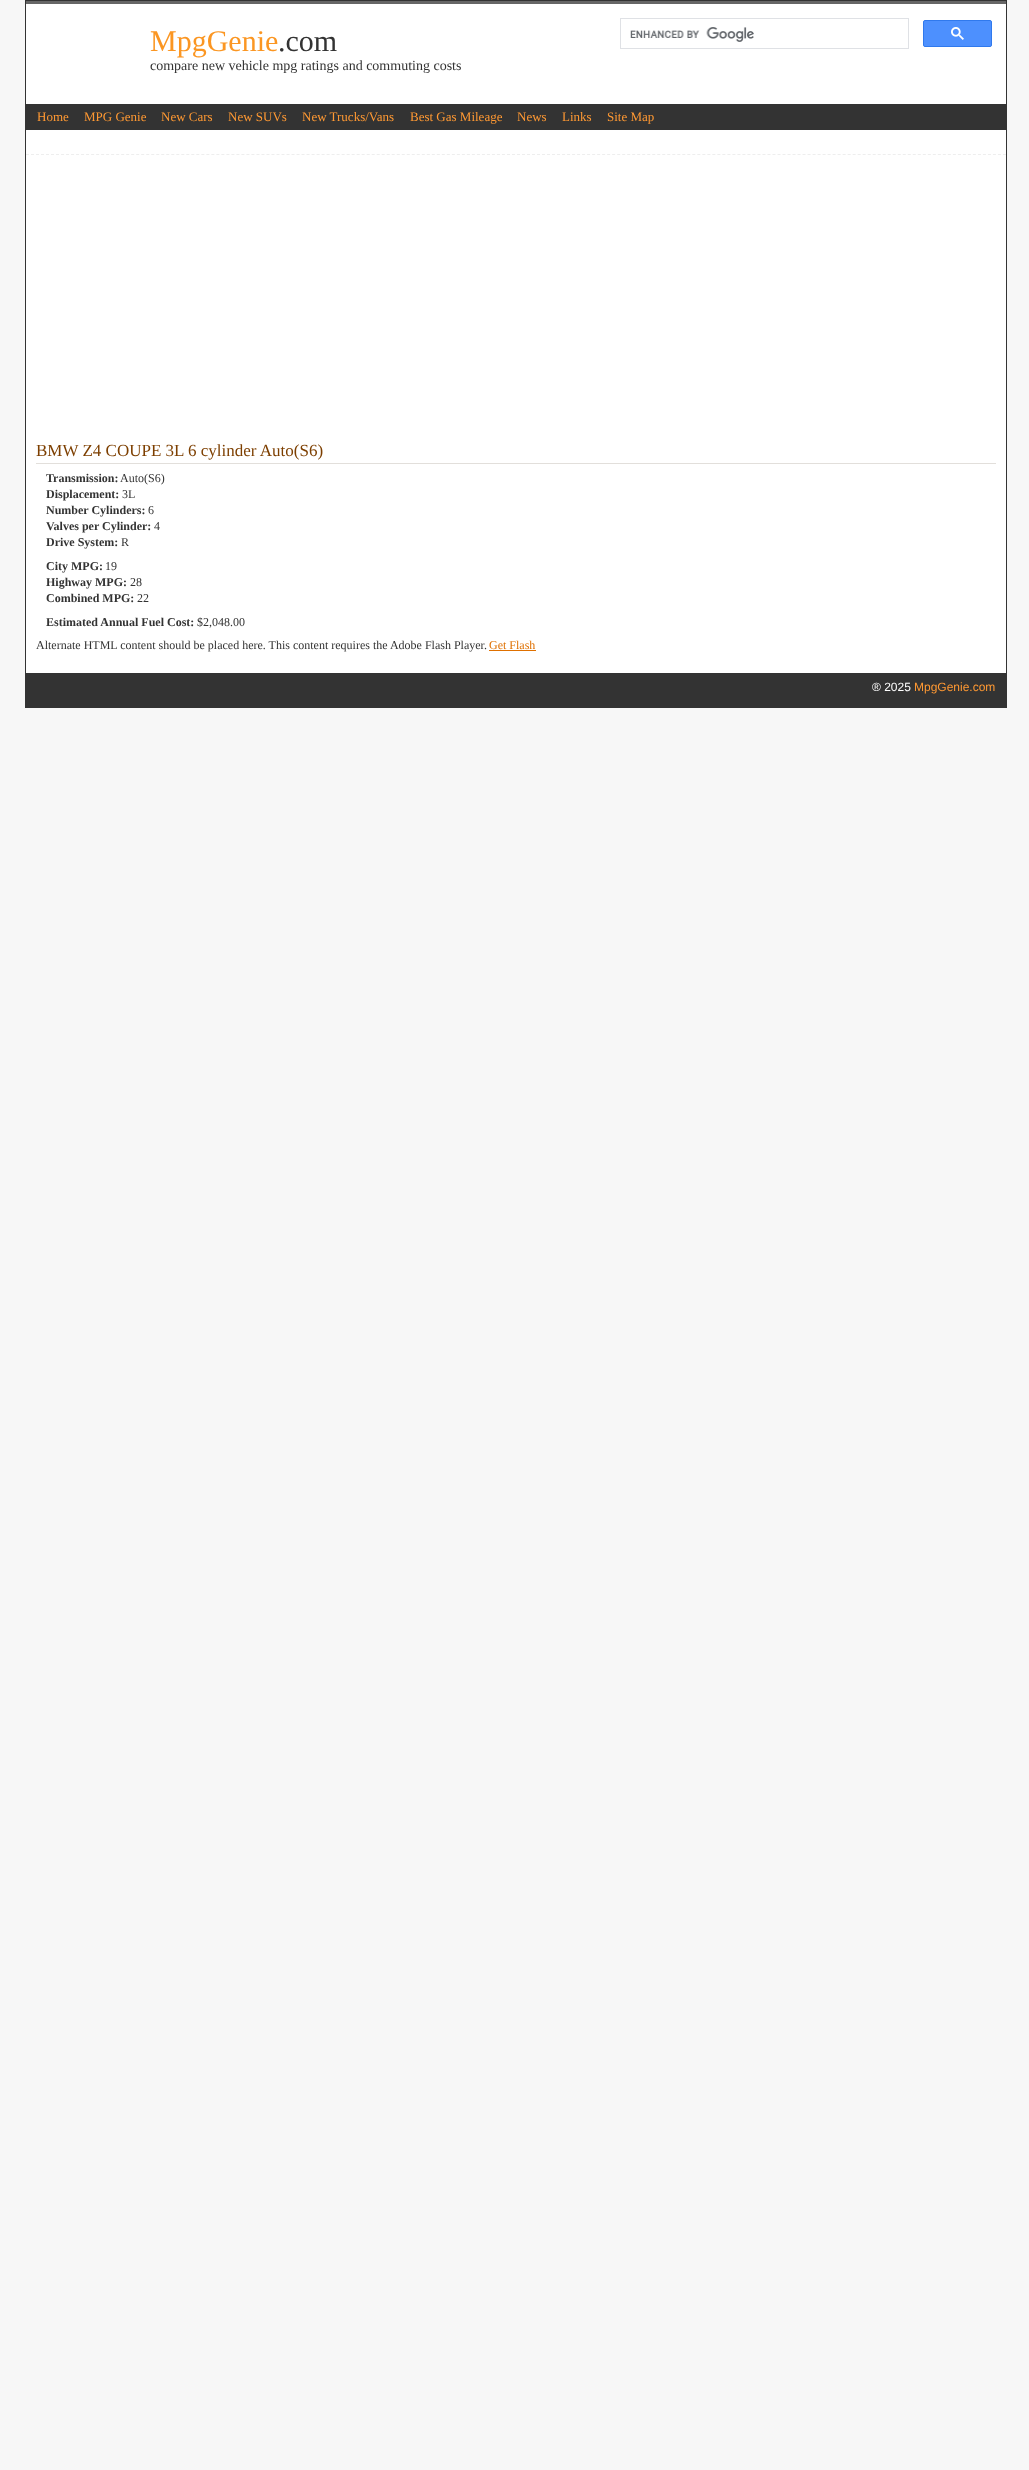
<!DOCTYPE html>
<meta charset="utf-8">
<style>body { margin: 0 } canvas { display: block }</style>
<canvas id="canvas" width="1029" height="2470"></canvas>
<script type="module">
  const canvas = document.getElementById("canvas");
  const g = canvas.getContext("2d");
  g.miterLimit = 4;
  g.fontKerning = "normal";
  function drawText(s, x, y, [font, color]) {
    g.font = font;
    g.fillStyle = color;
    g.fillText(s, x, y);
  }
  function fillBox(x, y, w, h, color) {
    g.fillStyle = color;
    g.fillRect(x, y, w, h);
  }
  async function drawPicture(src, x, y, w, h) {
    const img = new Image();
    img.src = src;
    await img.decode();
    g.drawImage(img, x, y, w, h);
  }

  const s1 = ["30px Liberation Serif", "#FB9622"];
  const s2 = ["30px Liberation Serif", "#333333"];
  const s3 = ["14px Liberation Serif", "#333333"];
  const s4 = ["13px Liberation Serif", "#FF9933"];
  const s5 = ["17px Liberation Serif", "#7D3F00"];
  const s6 = ["bold 12px Liberation Serif", "#333333"];
  const s7 = ["12px Liberation Serif", "#333333"];
  const s8 = ["12px Liberation Serif", "#DF7000"];
  const s9 = ["12px Liberation Sans", "#FFFFFF"];
  const s10 = ["12px Liberation Sans", "#FF9933"];

  fillBox(0, 0, 1029, 2470, "#F7F7F7");
  fillBox(26, 4, 980, 669, "#FFFFFF");
  g.strokeStyle = "#333333";
  g.strokeRect(25.5, 0.5, 981, 707);
  fillBox(26, 1, 980, 3, "#666666");
  drawText("MpgGenie", 150, 51, s1);
  drawText(".com", 278, 51, s2);
  g.strokeStyle = "#DFE1E5";
  g.strokeRect(620.5, 18.5, 288, 30);
  await drawPicture("pic1.png", 630, 27, 124, 15);
  g.fillStyle = "#4D90FE";
  g.beginPath();
  g.roundRect(923.5, 20.5, 68, 26, 1.5);
  g.fill();
  g.strokeStyle = "#3079ED";
  g.stroke();
  await drawPicture("pic2.png", 951, 27, 13, 13);
  drawText("compare new vehicle mpg ratings and commuting costs", 150, 70, s3);
  fillBox(26, 104, 980, 26, "#333333");
  drawText("Home", 37, 121, s4);
  drawText("MPG Genie", 84, 121, s4);
  drawText("New Cars", 161, 121, s4);
  drawText("New SUVs", 228, 121, s4);
  drawText("New Trucks/Vans", 302, 121, s4);
  drawText("Best Gas Mileage", 410, 121, s4);
  drawText("News", 517, 121, s4);
  drawText("Links", 562, 121, s4);
  drawText("Site Map", 607, 121, s4);
  g.beginPath();
  g.moveTo(26, 154.5);
  g.lineTo(1006, 154.5);
  g.strokeStyle = "#EEEEEE";
  g.setLineDash([3, 2.01]);
  g.stroke();
  fillBox(36, 463, 960, 1, "#E2DFDB");
  drawText("BMW Z4 COUPE 3L 6 cylinder Auto(S6)", 36, 456, s5);
  drawText("Transmission:", 46, 482, s6);
  drawText("Auto(S6)", 120, 482, s7);
  drawText("Displacement:", 46, 498, s6);
  drawText("3L", 122, 498, s7);
  drawText("Number Cylinders:", 46, 514, s6);
  drawText("6", 148, 514, s7);
  drawText("Valves per Cylinder:", 46, 530, s6);
  drawText("4", 154, 530, s7);
  drawText("Drive System:", 46, 546, s6);
  drawText("R", 121, 546, s7);
  drawText("City MPG:", 46, 570, s6);
  drawText("19", 105, 570, s7);
  drawText("Highway MPG:", 46, 586, s6);
  drawText("28", 130, 586, s7);
  drawText("Combined MPG:", 46, 602, s6);
  drawText("22", 137, 602, s7);
  drawText("Estimated Annual Fuel Cost:", 46, 626, s6);
  drawText("$2,048.00", 197, 626, s7);
  drawText("Alternate HTML content should be placed here. This content requires the Adobe Flash Player.", 36, 649, s7);
  drawText("Get Flash", 489, 649, s8);
  fillBox(489, 650, 47, 1, "#DF7000");
  fillBox(26, 673, 980, 34, "#333333");
  drawText("® 2025", 872, 691, s9);
  drawText("MpgGenie.com", 914, 691, s10);
</script>
